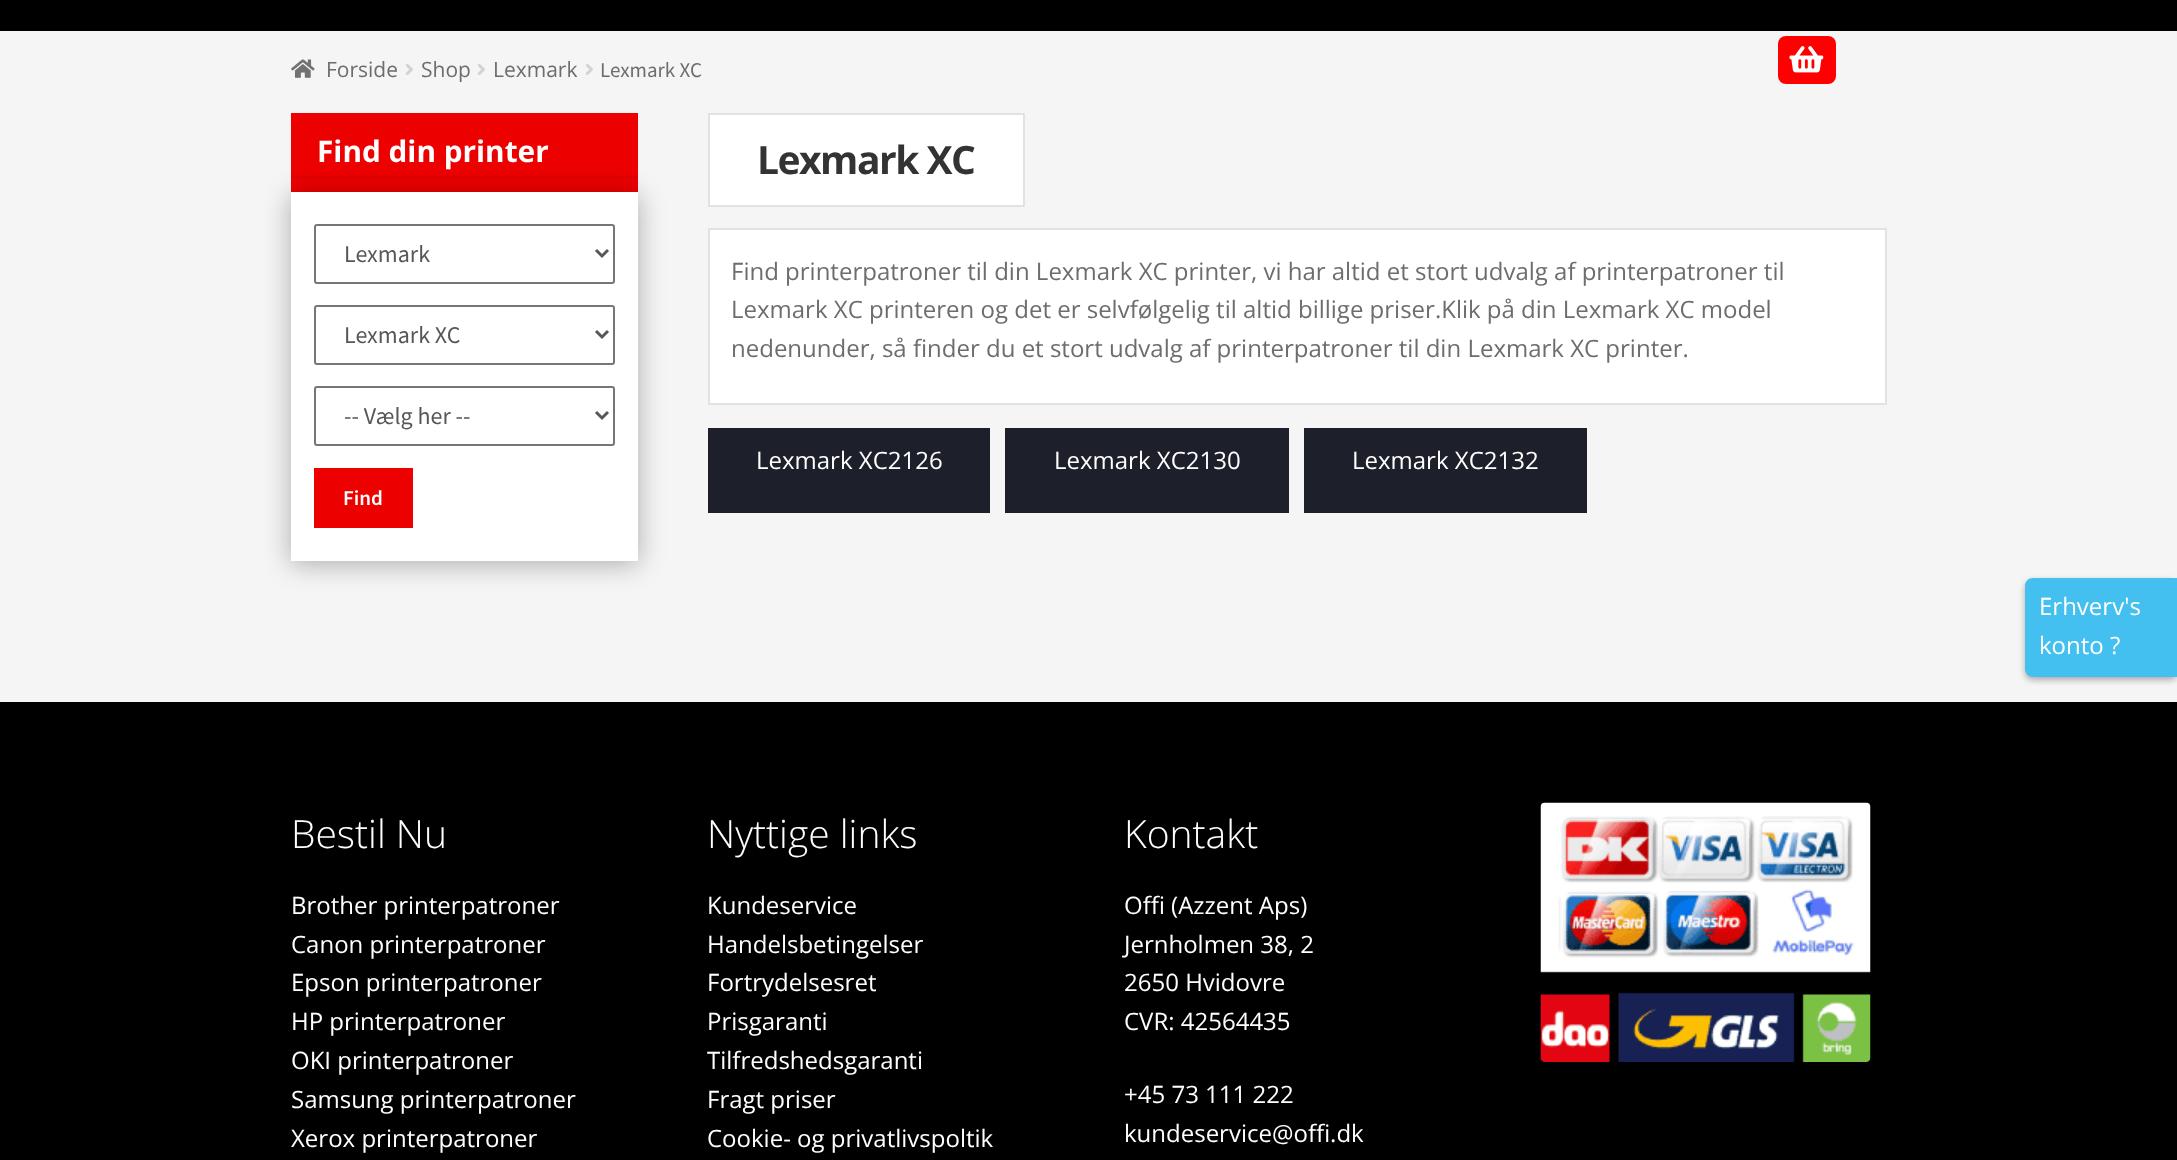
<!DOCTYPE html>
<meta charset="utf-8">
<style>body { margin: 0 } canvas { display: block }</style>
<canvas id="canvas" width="2177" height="1160"></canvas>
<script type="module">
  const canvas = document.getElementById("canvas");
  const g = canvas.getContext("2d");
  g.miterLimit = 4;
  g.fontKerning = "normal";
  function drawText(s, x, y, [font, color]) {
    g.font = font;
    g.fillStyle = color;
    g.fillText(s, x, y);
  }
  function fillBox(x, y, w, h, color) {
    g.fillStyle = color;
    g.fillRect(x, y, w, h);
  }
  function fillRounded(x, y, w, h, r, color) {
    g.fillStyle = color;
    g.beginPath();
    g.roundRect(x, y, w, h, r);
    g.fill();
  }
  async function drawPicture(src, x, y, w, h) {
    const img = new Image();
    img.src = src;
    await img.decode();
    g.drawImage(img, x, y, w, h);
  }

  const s1 = ["21px Open Sans", "#6D6D6D"];
  const s2 = ["21px Source Sans Pro", "#6D6D6D"];
  const s3 = ["bold 29.75px Open Sans", "#FFFFFF"];
  const s4 = ["24px Source Sans Pro", "#575757"];
  const s5 = ["600 21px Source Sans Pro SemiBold", "#FFFFFF"];
  const s6 = ["bold 39px Open Sans", "#333333"];
  const s7 = ["24px Open Sans", "#6D6D6D"];
  const s8 = ["24px Open Sans", "#FFFFFF"];
  const s9 = ["300 39px Open Sans", "#FFFFFF"];

  fillBox(0, 0, 2177, 1160, "#F5F5F5");
  fillBox(0, 0, 2177, 31, "#000000");
  fillRounded(1778, 36, 58, 48, 8, "#FF0000");
  await drawPicture("pic1.png", 1789, 46, 35, 27);
  await drawPicture("pic2.png", 291, 59, 24, 19);
  drawText("Forside", 326, 77, s1);
  await drawPicture("pic3.png", 405, 63, 8, 12);
  drawText("Shop", 421, 77, s1);
  await drawPicture("pic3.png", 477, 63, 8, 12);
  drawText("Lexmark", 493, 77, s1);
  await drawPicture("pic3.png", 585, 63, 8, 12);
  drawText("Lexmark XC", 600, 77, s2);
  fillBox(291, 113, 347, 79, "#ED0000");
  fillBox(291, 176, 347, 2, "#E10000");
  g.fillStyle = "rgba(0, 0, 0, 0.3)";
  g.filter = "blur(13.5px)";
  g.beginPath();
  g.rect(291, 195, 347, 369);
  g.fill();
  g.filter = "none";
  drawText("Find din printer", 317, 162, s3);
  fillBox(291, 192, 347, 369, "#FFFFFF");
  g.beginPath();
  g.roundRect(315, 225, 299, 58, 2);
  g.strokeStyle = "#767676";
  g.lineWidth = 2;
  g.stroke();
  g.beginPath();
  g.moveTo(596, 250);
  g.lineTo(602, 256);
  g.lineTo(608, 250);
  g.strokeStyle = "#575757";
  g.lineWidth = 3;
  g.stroke();
  drawText("Lexmark", 344, 262, s4);
  g.beginPath();
  g.roundRect(315, 306, 299, 58, 2);
  g.strokeStyle = "#767676";
  g.lineWidth = 2;
  g.stroke();
  g.beginPath();
  g.moveTo(596, 331);
  g.lineTo(602, 337);
  g.lineTo(608, 331);
  g.strokeStyle = "#575757";
  g.lineWidth = 3;
  g.stroke();
  drawText("Lexmark XC", 344, 343, s4);
  g.beginPath();
  g.roundRect(315, 387, 299, 58, 2);
  g.strokeStyle = "#767676";
  g.lineWidth = 2;
  g.stroke();
  g.beginPath();
  g.moveTo(596, 412);
  g.lineTo(602, 418);
  g.lineTo(608, 412);
  g.strokeStyle = "#575757";
  g.lineWidth = 3;
  g.stroke();
  drawText("-- Vælg her --", 344, 424, s4);
  fillBox(314, 468, 99, 60, "#ED0000");
  drawText("Find", 343, 505, s5);
  g.beginPath();
  g.rect(709, 114, 315, 92);
  g.fill();
  g.strokeStyle = "#E2E2E2";
  g.lineWidth = 2;
  g.stroke();
  g.letterSpacing = "-1.5px";
  drawText("Lexmark XC", 757, 174, s6);
  g.fillStyle = "#FFFFFF";
  g.beginPath();
  g.rect(709, 229, 1177, 175);
  g.fill();
  g.stroke();
  g.letterSpacing = "0px";
  drawText("Find printerpatroner til din Lexmark XC printer, vi har altid et stort udvalg af printerpatroner til", 731, 280, s7);
  drawText("Lexmark XC printeren og det er selvfølgelig til altid billige priser.Klik på din Lexmark XC model", 731, 318, s7);
  drawText("nedenunder, så finder du et stort udvalg af printerpatroner til din Lexmark XC printer.", 731, 357, s7);
  fillBox(708, 428, 282, 85, "#1D1F2A");
  drawText("Lexmark XC2126", 756, 469, s8);
  fillBox(1005, 428, 284, 85, "#1D1F2A");
  drawText("Lexmark XC2130", 1054, 469, s8);
  fillBox(1304, 428, 283, 85, "#1D1F2A");
  drawText("Lexmark XC2132", 1352, 469, s8);
  fillBox(0, 702, 2177, 458, "#000000");
  g.fillStyle = "rgba(0, 0, 0, 0.3)";
  g.filter = "blur(3px)";
  g.beginPath();
  g.roundRect(2025, 581, 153, 99, 8);
  g.fill();
  g.filter = "none";
  g.fillStyle = "#44C0F0";
  g.beginPath();
  g.moveTo(2033, 578);
  g.lineTo(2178, 578);
  g.lineTo(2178, 677);
  g.lineTo(2033, 677);
  g.bezierCurveTo(2028.5, 677, 2025, 673.5, 2025, 669);
  g.lineTo(2025, 586);
  g.bezierCurveTo(2025, 581.5, 2028.5, 578, 2033, 578);
  g.closePath();
  g.fill();
  drawText("Erhverv's", 2039, 615, s8);
  drawText("konto ?", 2039, 654, s8);
  await drawPicture("pic4.png", 1540, 802, 331, 260);
  drawText("Bestil Nu", 291, 848, s9);
  drawText("Brother printerpatroner", 291, 914, s8);
  drawText("Canon printerpatroner", 291, 953, s8);
  drawText("Epson printerpatroner", 291, 991, s8);
  drawText("HP printerpatroner", 291, 1030, s8);
  drawText("OKI printerpatroner", 291, 1069, s8);
  drawText("Samsung printerpatroner", 291, 1108, s8);
  drawText("Xerox printerpatroner", 291, 1147, s8);
  drawText("Nyttige links", 707, 848, s9);
  drawText("Kundeservice", 707, 914, s8);
  drawText("Handelsbetingelser", 707, 953, s8);
  drawText("Fortrydelsesret", 707, 991, s8);
  drawText("Prisgaranti", 707, 1030, s8);
  drawText("Tilfredshedsgaranti", 707, 1069, s8);
  drawText("Fragt priser", 707, 1108, s8);
  drawText("Cookie- og privatlivspoltik", 707, 1147, s8);
  drawText("Kontakt", 1124, 848, s9);
  drawText("Offi (Azzent Aps)", 1124, 914, s8);
  drawText("Jernholmen 38, 2", 1124, 953, s8);
  drawText("2650 Hvidovre", 1124, 991, s8);
  drawText("CVR: 42564435", 1124, 1030, s8);
  drawText("+45 73 111 222", 1124, 1103, s8);
  drawText("kundeservice@offi.dk", 1124, 1142, s8);
</script>
